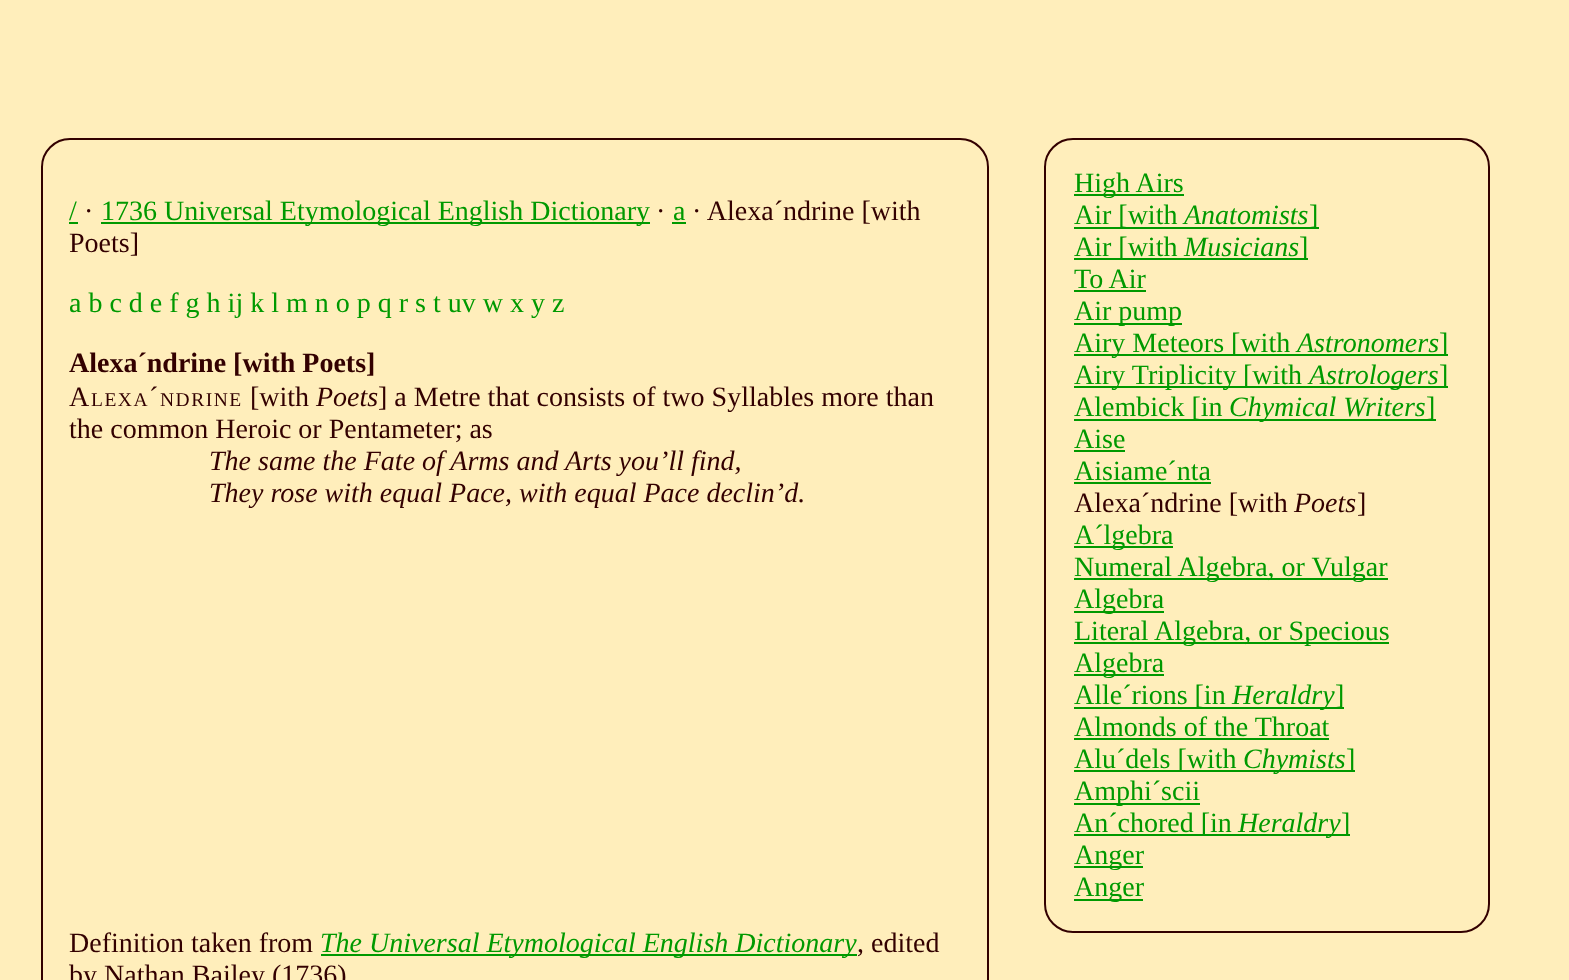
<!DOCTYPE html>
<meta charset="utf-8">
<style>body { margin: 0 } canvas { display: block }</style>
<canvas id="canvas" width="1569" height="980"></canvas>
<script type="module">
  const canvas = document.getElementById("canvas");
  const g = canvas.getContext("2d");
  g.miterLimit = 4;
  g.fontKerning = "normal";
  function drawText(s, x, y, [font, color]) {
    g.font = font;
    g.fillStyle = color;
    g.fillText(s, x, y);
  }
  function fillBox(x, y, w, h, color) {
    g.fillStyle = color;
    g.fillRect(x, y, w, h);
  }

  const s1 = ["28px Liberation Serif", "#009900"];
  const s2 = ["28px Liberation Serif", "#330000"];
  const s3 = ["bold 28px Liberation Serif", "#330000"];
  const s4 = ["19.5px Liberation Serif", "#330000"];
  const s5 = ["italic 28px Liberation Serif", "#330000"];
  const s6 = ["italic 28px Liberation Serif", "#009900"];

  fillBox(0, 0, 1569, 980, "#FFEEBB");
  g.beginPath();
  g.roundRect(42, 139, 946, 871, 28);
  g.strokeStyle = "#330000";
  g.lineWidth = 2;
  g.stroke();
  drawText("/", 69, 220, s1);
  fillBox(69, 222, 9, 2, "#009900");
  drawText("·", 84, 220, s2);
  fillBox(101, 222, 549, 2, "#009900");
  drawText("1736 Universal Etymological English Dictionary", 101, 220, s1);
  drawText("·", 656, 220, s2);
  drawText("a", 673, 220, s1);
  fillBox(672, 222, 14, 2, "#009900");
  drawText("· Alexaˊndrine [with", 692, 220, s2);
  drawText("Poets]", 69, 252, s2);
  drawText("a b c d e f g h ij k l m n o p q r s t uv w x y z", 69, 312, s1);
  drawText("Alexaˊndrine [with Poets]", 69, 372, s3);
  g.letterSpacing = "1.5px";
  drawText("A", 69, 406, s2);
  drawText("LEXA", 91, 406, s4);
  drawText("ˊ", 149, 406, s2);
  drawText("NDRINE", 160, 406, s4);
  g.letterSpacing = "0px";
  drawText("[with", 250, 406, s2);
  drawText("Poets", 316, 406, s5);
  drawText("] a Metre that consists of two Syllables more than", 378, 406, s2);
  drawText("the common Heroic or Pentameter; as", 69, 438, s2);
  drawText("The same the Fate of Arms and Arts you’ll find,", 209, 470, s5);
  drawText("They rose with equal Pace, with equal Pace declin’d.", 209, 502, s5);
  drawText("Definition taken from", 69, 952, s2);
  fillBox(321, 954, 536, 2, "#009900");
  drawText("The Universal Etymological English Dictionary", 320, 952, s6);
  drawText(", edited", 857, 952, s2);
  drawText("by Nathan Bailey (1736)", 69, 984, s2);
  g.beginPath();
  g.roundRect(1045, 139, 444, 793, 28);
  g.stroke();
  fillBox(1074, 194, 110, 2, "#009900");
  drawText("High Airs", 1074, 192, s1);
  fillBox(1074, 227, 245, 2, "#009900");
  drawText("Air [with", 1074, 224, s1);
  drawText("Anatomists", 1184, 224, s6);
  drawText("]", 1309, 224, s1);
  fillBox(1074, 258, 234, 2, "#009900");
  drawText("Air [with", 1074, 256, s1);
  drawText("Musicians", 1184, 256, s6);
  drawText("]", 1299, 256, s1);
  drawText("To Air", 1074, 288, s1);
  fillBox(1074, 290, 72, 2, "#009900");
  fillBox(1074, 323, 108, 2, "#009900");
  drawText("Air pump", 1074, 320, s1);
  fillBox(1074, 354, 374, 2, "#009900");
  drawText("Airy Meteors [with", 1074, 352, s1);
  drawText("Astronomers", 1297, 352, s6);
  drawText("]", 1439, 352, s1);
  fillBox(1074, 386, 162, 2, "#009900");
  drawText("Airy Triplicity", 1074, 384, s1);
  fillBox(1236, 386, 212, 2, "#009900");
  drawText("[with", 1243, 384, s1);
  drawText("Astrologers", 1309, 384, s6);
  drawText("]", 1439, 384, s1);
  fillBox(1074, 419, 362, 2, "#009900");
  drawText("Alembick [in", 1074, 416, s1);
  drawText("Chymical Writers", 1229, 416, s6);
  drawText("]", 1426, 416, s1);
  drawText("Aise", 1074, 448, s1);
  fillBox(1074, 450, 51, 2, "#009900");
  drawText("Aisiameˊnta", 1074, 480, s1);
  fillBox(1074, 482, 137, 2, "#009900");
  drawText("Alexaˊndrine [with", 1074, 512, s2);
  drawText("Poets", 1294, 512, s5);
  drawText("]", 1357, 512, s2);
  fillBox(1074, 546, 99, 2, "#009900");
  drawText("Aˊlgebra", 1074, 544, s1);
  fillBox(1074, 578, 314, 2, "#009900");
  drawText("Numeral Algebra, or Vulgar", 1074, 576, s1);
  fillBox(1074, 611, 90, 2, "#009900");
  drawText("Algebra", 1074, 608, s1);
  fillBox(1074, 642, 315, 2, "#009900");
  drawText("Literal Algebra, or Specious", 1074, 640, s1);
  fillBox(1074, 674, 90, 2, "#009900");
  drawText("Algebra", 1074, 672, s1);
  fillBox(1074, 707, 270, 2, "#009900");
  drawText("Alleˊrions [in", 1074, 704, s1);
  drawText("Heraldry", 1232, 704, s6);
  drawText("]", 1335, 704, s1);
  drawText("Almonds of the Throat", 1074, 736, s1);
  fillBox(1074, 738, 255, 2, "#009900");
  fillBox(1074, 770, 281, 2, "#009900");
  drawText("Aluˊdels [with", 1074, 768, s1);
  drawText("Chymists", 1243, 768, s6);
  drawText("]", 1346, 768, s1);
  fillBox(1074, 803, 126, 2, "#009900");
  drawText("Amphiˊscii", 1074, 800, s1);
  fillBox(1074, 834, 267, 2, "#009900");
  drawText("Anˊchored [in", 1074, 832, s1);
  drawText("Heraldry", 1238, 832, s6);
  fillBox(1341, 834, 9, 2, "#009900");
  drawText("]", 1341, 832, s1);
  fillBox(1074, 866, 69, 2, "#009900");
  drawText("Anger", 1074, 864, s1);
  fillBox(1074, 899, 69, 2, "#009900");
  drawText("Anger", 1074, 896, s1);
</script>
